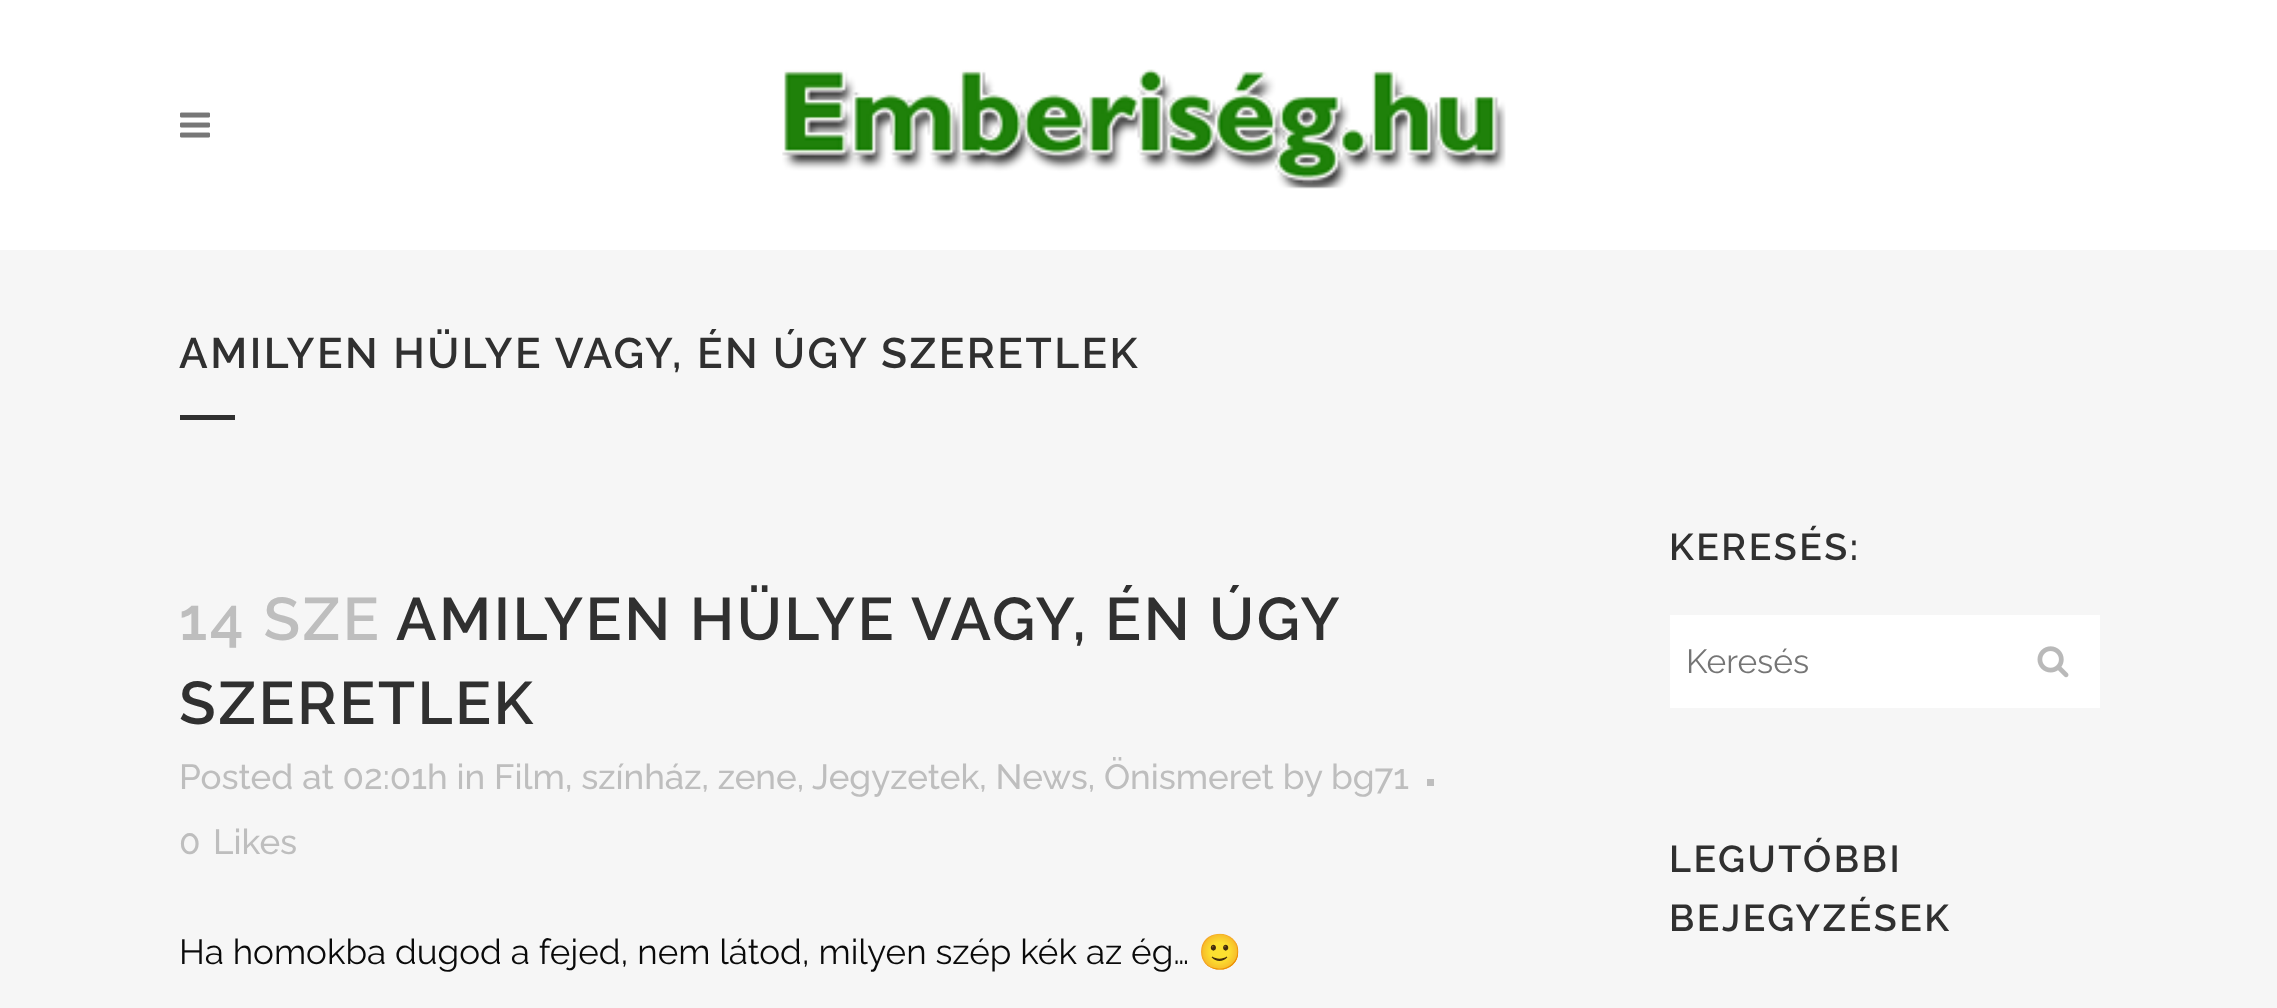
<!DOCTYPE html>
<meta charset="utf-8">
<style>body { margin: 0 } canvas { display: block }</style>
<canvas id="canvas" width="2277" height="1008"></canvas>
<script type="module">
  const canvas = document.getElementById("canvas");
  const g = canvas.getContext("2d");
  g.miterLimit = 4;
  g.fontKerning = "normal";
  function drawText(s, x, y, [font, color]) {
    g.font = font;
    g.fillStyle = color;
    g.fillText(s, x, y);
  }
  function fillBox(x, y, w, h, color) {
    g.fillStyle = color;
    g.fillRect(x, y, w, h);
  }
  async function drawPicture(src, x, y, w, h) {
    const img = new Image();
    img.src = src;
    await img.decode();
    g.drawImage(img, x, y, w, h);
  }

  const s1 = ["600 42.5px Raleway", "#303030"];
  const s2 = ["600 60px Raleway", "#BEBEBE"];
  const s3 = ["600 60px Raleway", "#303030"];
  const s4 = ["500 35px Raleway", "#BEBEBE"];
  const s5 = ["35px Raleway", "#0A0A0A"];
  const s6 = ["35px Noto Color Emoji", "#0A0A0A"];
  const s7 = ["600 37.5px Raleway", "#303030"];
  const s8 = ["33.5px Raleway", "#757575"];

  fillBox(0, 0, 2277, 1008, "#F6F6F6");
  fillBox(0, 0, 2277, 250, "#FFFFFF");
  await drawPicture("pic1.png", 180, 112, 30, 26);
  await drawPicture("pic2.png", 782, 69, 724, 120);
  g.letterSpacing = "2.5px";
  drawText("AMILYEN HÜLYE VAGY, ÉN ÚGY SZERETLEK", 179, 368, s1);
  fillBox(180, 415, 55, 5, "#303030");
  drawText("14 SZE", 179, 640, s2);
  g.wordSpacing = "-0.5px";
  drawText("AMILYEN HÜLYE VAGY, ÉN ÚGY", 396, 640, s3);
  g.wordSpacing = "0px";
  drawText("SZERETLEK", 179, 724, s3);
  g.letterSpacing = "0px";
  drawText("Posted at 02:01h in Film, színház, zene,", 179, 789, s4);
  drawText("Jegyzetek, News, Önismeret by bg71", 812, 789, s4);
  fillBox(1427, 779, 7, 7, "#BEBEBE");
  drawText("0", 179, 854, s4);
  drawText("Likes", 213, 854, s4);
  drawText("Ha homokba dugod a fejed, nem látod, milyen szép kék az ég…", 179, 964, s5);
  drawText("🙂", 1198, 964, s6);
  g.letterSpacing = "2.5px";
  drawText("KERESÉS:", 1669, 560, s7);
  fillBox(1670, 615, 430, 93, "#FFFFFF");
  g.letterSpacing = "0px";
  drawText("Keresés", 1686, 673, s8);
  await drawPicture("pic3.png", 2037, 646, 32, 32);
  g.letterSpacing = "2.5px";
  drawText("LEGUTÓBBI", 1669, 872, s7);
  drawText("BEJEGYZÉSEK", 1669, 931, s7);
</script>
